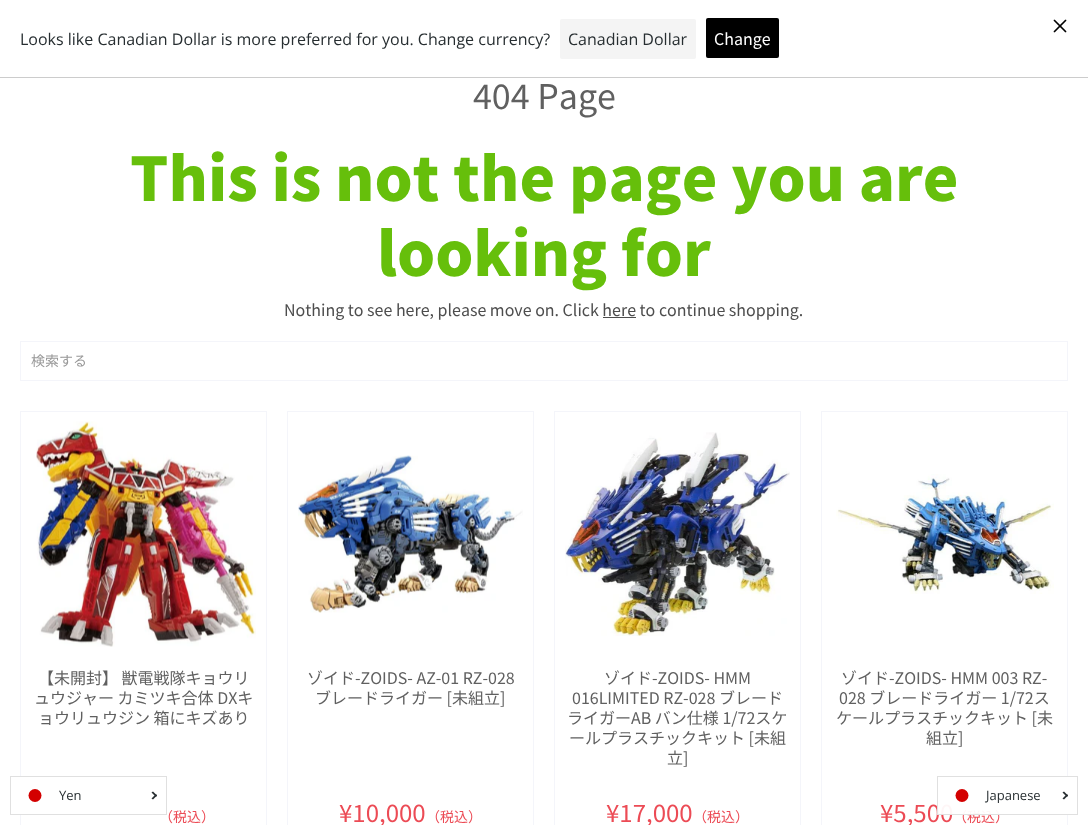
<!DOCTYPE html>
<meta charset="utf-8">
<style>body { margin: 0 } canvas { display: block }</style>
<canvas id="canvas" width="1088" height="825"></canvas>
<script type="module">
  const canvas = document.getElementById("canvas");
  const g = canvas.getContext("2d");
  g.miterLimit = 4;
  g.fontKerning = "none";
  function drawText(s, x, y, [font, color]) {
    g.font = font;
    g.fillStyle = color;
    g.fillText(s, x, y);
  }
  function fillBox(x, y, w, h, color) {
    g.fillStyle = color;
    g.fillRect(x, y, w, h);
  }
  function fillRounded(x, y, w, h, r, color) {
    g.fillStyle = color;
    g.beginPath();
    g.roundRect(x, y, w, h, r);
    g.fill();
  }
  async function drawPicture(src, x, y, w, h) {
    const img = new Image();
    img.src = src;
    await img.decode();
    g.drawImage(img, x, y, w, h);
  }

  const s1 = ["16px Open Sans", "#272E31"];
  const s2 = ["16px Noto Sans JP", "#FFFFFF"];
  const s3 = ["34px Noto Sans JP", "#606060"];
  const s4 = ["900 60px Noto Sans JP", "#66BF0B"];
  const s5 = ["16px Noto Sans JP", "#4D4D4D"];
  const s6 = ["14px Noto Sans JP", "#989898"];
  const s7 = ["16px Noto Sans JP", "#606060"];
  const s8 = ["14px Noto Sans JP", "#EC4B55"];
  const s9 = ["24px Noto Sans JP", "#EC4B55"];
  const s10 = ["13px Open Sans", "#272E31"];

  fillBox(0, 0, 1088, 825, "#FFFFFF");
  fillBox(0, 77, 1088, 1, "#CCCCCC");
  await drawPicture("pic1.png", 1053, 19, 14, 14);
  drawText("Looks like Canadian Dollar is more preferred for you. Change currency?", 20, 45, s1);
  fillRounded(560, 19, 136, 40, 2, "#F4F4F4");
  drawText("Canadian Dollar", 568, 45, s1);
  fillRounded(706, 18, 73, 40, 2, "#000000");
  drawText("Change", 714, 45, s2);
  drawText("404 Page", 473, 109, s3);
  drawText("This is not the page you are", 130, 201, s4);
  drawText("looking for", 377, 276, s4);
  drawText("Nothing to see here, please move on. Click here to continue shopping.", 284, 316, s5);
  fillBox(603, 317, 33, 1, "#4D4D4D");
  g.strokeStyle = "#F4F5FA";
  g.strokeRect(20.5, 341.5, 1047, 39);
  drawText("検索する", 31, 366, s6);
  g.strokeRect(20.5, 411.5, 246, 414);
  await drawPicture("pic2.png", 36, 421, 220, 226);
  drawText("【未開封】 獣電戦隊キョウリ", 38, 684, s7);
  drawText("ュウジャー カミツキ合体 DXキ", 34, 704, s7);
  drawText("ョウリュウジン 箱にキズあり", 38, 724, s7);
  drawText("（税込）", 159, 822, s8);
  g.strokeRect(287.5, 411.5, 246, 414);
  await drawPicture("pic3.png", 298, 455, 225, 158);
  drawText("ゾイド-ZOIDS- AZ-01 RZ-028", 307, 684, s7);
  drawText("ブレードライガー [未組立]", 315, 704, s7);
  drawText("¥10,000", 339, 822, s9);
  drawText("（税込）", 426, 822, s8);
  g.strokeRect(554.5, 411.5, 246, 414);
  await drawPicture("pic4.png", 565, 432, 225, 204);
  drawText("ゾイド-ZOIDS- HMM", 604, 684, s7);
  drawText("016LIMITED RZ-028 ブレード", 572, 704, s7);
  drawText("ライガーAB バン仕様 1/72スケ", 567, 724, s7);
  drawText("ールプラスチックキット [未組", 569, 744, s7);
  drawText("立]", 667, 764, s7);
  drawText("¥17,000", 606, 822, s9);
  drawText("（税込）", 693, 822, s8);
  g.strokeRect(821.5, 411.5, 246, 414);
  await drawPicture("pic5.png", 836, 474, 218, 120);
  drawText("ゾイド-ZOIDS- HMM 003 RZ-", 841, 684, s7);
  drawText("028 ブレードライガー 1/72ス", 839, 704, s7);
  drawText("ケールプラスチックキット [未", 836, 724, s7);
  drawText("組立]", 926, 744, s7);
  drawText("¥5,500", 880, 822, s9);
  drawText("（税込）", 953, 822, s8);
  fillBox(20, 777, 1, 37, "rgba(255, 255, 255, 0.95)");
  g.strokeStyle = "#E0E0E0";
  g.strokeRect(10.5, 776.5, 156, 38);
  g.fillStyle = "#D30000";
  g.beginPath();
  g.arc(35, 795.5, 6.5, 0, Math.PI * 2);
  g.fill();
  drawText("Yen", 59, 800, s10);
  g.beginPath();
  g.moveTo(153, 791.5);
  g.lineTo(157, 795.5);
  g.lineTo(156, 797);
  g.lineTo(151.5, 792.5);
  g.closePath();
  g.fill();
  g.beginPath();
  g.moveTo(156, 794);
  g.lineTo(157, 795.5);
  g.lineTo(153, 799.5);
  g.lineTo(151.5, 798.5);
  g.closePath();
  g.fill();
  fillBox(938, 777, 130, 37, "rgba(255, 255, 255, 0.95)");
  g.strokeRect(937.5, 776.5, 140, 38);
  g.fillStyle = "#D30000";
  g.beginPath();
  g.arc(962, 795.5, 6.5, 0, Math.PI * 2);
  g.fill();
  drawText("Japanese", 986, 800, s10);
  g.beginPath();
  g.moveTo(1064, 791.5);
  g.lineTo(1068, 795.5);
  g.lineTo(1067, 797);
  g.lineTo(1062.5, 792.5);
  g.closePath();
  g.fill();
  g.beginPath();
  g.moveTo(1067, 794);
  g.lineTo(1068, 795.5);
  g.lineTo(1064, 799.5);
  g.lineTo(1062.5, 798.5);
  g.closePath();
  g.fill();
</script>
